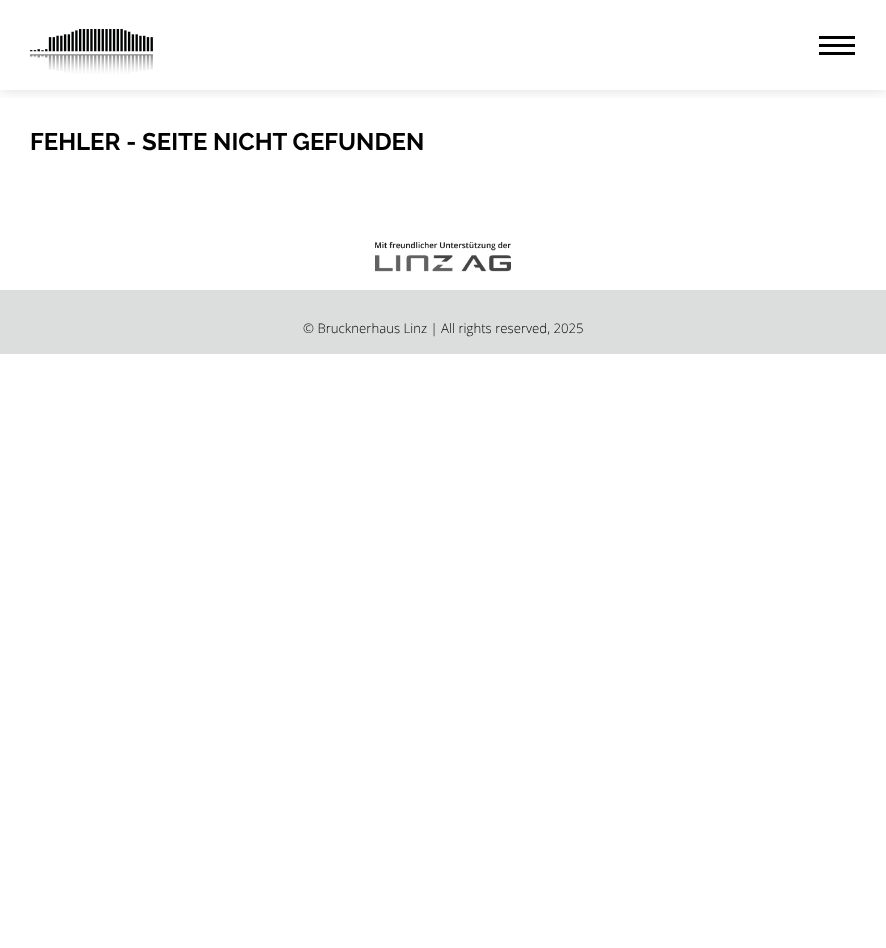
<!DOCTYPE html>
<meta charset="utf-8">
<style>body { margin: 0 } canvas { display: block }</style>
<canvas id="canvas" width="886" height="948"></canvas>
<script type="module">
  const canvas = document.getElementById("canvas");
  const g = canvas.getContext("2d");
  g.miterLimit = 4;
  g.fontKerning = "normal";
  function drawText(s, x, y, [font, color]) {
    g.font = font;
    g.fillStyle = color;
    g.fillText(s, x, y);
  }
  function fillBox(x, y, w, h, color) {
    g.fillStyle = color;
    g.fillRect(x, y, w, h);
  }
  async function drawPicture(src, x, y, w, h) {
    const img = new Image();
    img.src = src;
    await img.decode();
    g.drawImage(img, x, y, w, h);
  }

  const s1 = ["100 24px Raleway", "#010101"];
  const s2 = ["300 13.2px Open Sans", "#010101"];

  fillBox(0, 0, 886, 948, "#FFFFFF");
  g.save();
  g.beginPath();
  g.rect(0, 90, 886, 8);
  g.clip();
  g.fillStyle = "rgba(0, 0, 0, 0.18)";
  g.filter = "blur(8px)";
  g.beginPath();
  g.rect(0, -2, 886, 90);
  g.fill();
  g.filter = "none";
  g.restore();
  await drawPicture("pic1.png", 30, 29, 123, 45);
  fillBox(819, 36, 36, 3, "#000000");
  fillBox(819, 44, 36, 3, "#000000");
  fillBox(819, 52, 36, 3, "#000000");
  drawText("FEHLER - SEITE NICHT GEFUNDEN", 30, 150, s1);
  await drawPicture("pic2.png", 375, 241, 136, 31);
  fillBox(0, 290, 886, 64, "#DCDDDD");
  drawText("© Brucknerhaus Linz | All rights reserved, 2025", 303, 333, s2);
</script>
